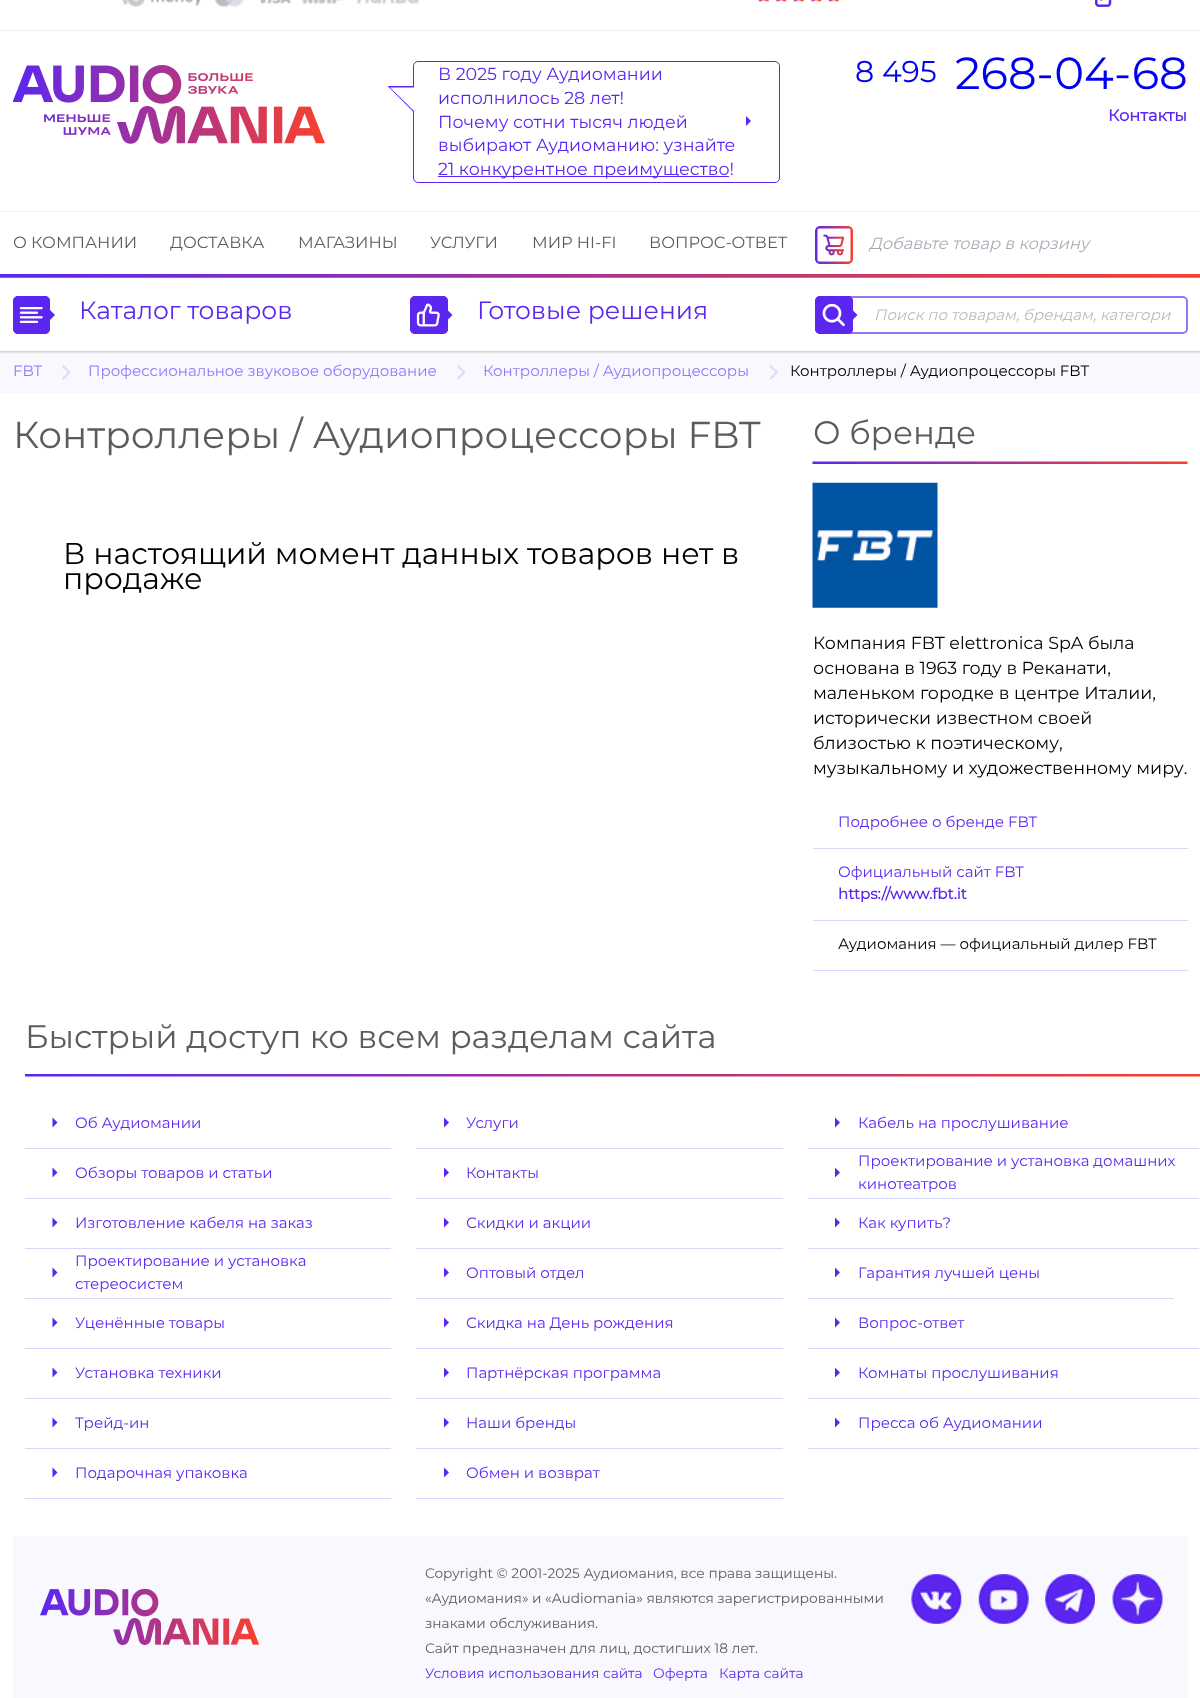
<!DOCTYPE html>
<meta charset="utf-8">
<style>body { margin: 0 } canvas { display: block }</style>
<canvas id="canvas" width="1200" height="1698"></canvas>
<script type="module">
  const canvas = document.getElementById("canvas");
  const g = canvas.getContext("2d");
  g.miterLimit = 4;
  g.fontKerning = "normal";
  function drawText(s, x, y, [font, color]) {
    g.font = font;
    g.fillStyle = color;
    g.fillText(s, x, y);
  }
  function fillBox(x, y, w, h, color) {
    g.fillStyle = color;
    g.fillRect(x, y, w, h);
  }
  function fillRounded(x, y, w, h, r, color) {
    g.fillStyle = color;
    g.beginPath();
    g.roundRect(x, y, w, h, r);
    g.fill();
  }
  async function drawPicture(src, x, y, w, h) {
    const img = new Image();
    img.src = src;
    await img.decode();
    g.drawImage(img, x, y, w, h);
  }
  let gradient;

  const s1 = ["100 17.5px Montserrat", "#5B27F0"];
  const s2 = ["100 30px Montserrat", "#0000EE"];
  const s3 = ["100 45px Montserrat", "#0000EE"];
  const s4 = ["bold 16.25px Montserrat", "#5B27F0"];
  const s5 = ["100 16.25px Montserrat", "#5C5C5C"];
  const s6 = ["italic 100 16.25px Montserrat", "#ADAAB6"];
  const s7 = ["100 25px Montserrat", "#5B27F0"];
  const s8 = ["italic 100 15px Montserrat", "#BBBBBB"];
  const s9 = ["100 15px Montserrat", "#9078F7"];
  const s10 = ["100 15px Montserrat", "#000000"];
  const s11 = ["100 37.5px Montserrat", "#5C5C5C"];
  const s12 = ["100 30px Montserrat", "#000000"];
  const s13 = ["100 32.5px Montserrat", "#5C5C5C"];
  const s14 = ["100 17.5px Montserrat", "#000000"];
  const s15 = ["100 15px Montserrat", "#5B27F0"];
  const s16 = ["bold 15px Montserrat", "#5B27F0"];
  const s17 = ["100 13.75px Montserrat", "#5C5C5C"];
  const s18 = ["100 13.75px Montserrat", "#5B27F0"];

  fillBox(0, 0, 1200, 1698, "#FFFFFF");
  fillBox(0, 30, 1200, 1, "#EFEFEF");
  await drawPicture("pic1.png", 122, 0, 297, 7);
  await drawPicture("pic2.png", 758, 0, 81, 2);
  await drawPicture("pic3.png", 1095, 0, 17, 7);
  fillBox(0, 211, 1200, 1, "#EFEFEF");
  await drawPicture("pic4.png", 13, 65, 312, 79);
  g.beginPath();
  g.roundRect(413.5, 61.5, 366, 121, 4.5);
  g.strokeStyle = "#5B27F0";
  g.stroke();
  g.fillStyle = "#5B27F0";
  g.beginPath();
  g.moveTo(414, 86);
  g.lineTo(414, 112.5);
  g.lineTo(387.5, 86);
  g.closePath();
  g.fill();
  drawText("В 2025 году Аудиомании", 438, 80, s1);
  drawText("исполнилось 28 лет!", 438, 104, s1);
  drawText("Почему сотни тысяч людей", 438, 128, s1);
  drawText("выбирают Аудиоманию: узнайте", 438, 151, s1);
  fillBox(438, 176, 291, 1, "#5B27F0");
  drawText("21 конкурентное преимущество!", 438, 175, s1);
  g.fillStyle = "#FFFFFF";
  g.beginPath();
  g.moveTo(414, 87.5);
  g.lineTo(414, 111);
  g.lineTo(390, 87.5);
  g.closePath();
  g.fill();
  g.fillStyle = "#5B27F0";
  g.beginPath();
  g.moveTo(746, 126);
  g.lineTo(746, 116);
  g.lineTo(751, 121);
  g.closePath();
  g.fill();
  drawText("8 495", 855, 82, s2);
  drawText("268-04-68", 955, 89, s3);
  drawText("Контакты", 1108, 121, s4);
  await drawPicture("pic5.png", 0, 274, 1200, 4);
  drawText("О КОМПАНИИ", 13, 248, s5);
  drawText("ДОСТАВКА", 170, 248, s5);
  drawText("МАГАЗИНЫ", 298, 248, s5);
  drawText("УСЛУГИ", 430, 248, s5);
  drawText("МИР HI-FI", 532, 248, s5);
  drawText("ВОПРОС-ОТВЕТ", 649, 248, s5);
  await drawPicture("pic6.png", 815, 226, 38, 38);
  drawText("Добавьте товар в корзину", 869, 249, s6);
  fillRounded(13, 296, 37, 38, 5, "#5B27F0");
  await drawPicture("pic7.png", 19, 307, 24, 16);
  g.beginPath();
  g.roundRect(13.5, 296.5, 36, 37, 4.5);
  g.stroke();
  g.beginPath();
  g.moveTo(50, 320);
  g.lineTo(50, 310);
  g.lineTo(55, 315);
  g.closePath();
  g.fill();
  drawText("Каталог товаров", 79, 319, s7);
  fillRounded(410, 296, 38, 38, 5, "#5B27F0");
  await drawPicture("pic8.png", 416, 303, 24, 24);
  g.beginPath();
  g.roundRect(410.5, 296.5, 37, 37, 4.5);
  g.stroke();
  g.beginPath();
  g.moveTo(447.5, 320);
  g.lineTo(447.5, 310);
  g.lineTo(452.5, 315);
  g.closePath();
  g.fill();
  drawText("Готовые решения", 477, 319, s7);
  g.fillStyle = "#9078F7";
  g.beginPath();
  g.moveTo(849, 296);
  g.lineTo(1182, 296);
  g.bezierCurveTo(1185, 296, 1188, 298, 1188, 301);
  g.lineTo(1188, 329);
  g.bezierCurveTo(1188, 332, 1185, 334, 1182, 334);
  g.lineTo(849, 334);
  g.closePath();
  g.moveTo(849, 298);
  g.lineTo(1182, 298);
  g.bezierCurveTo(1185, 298, 1186, 299, 1186, 301);
  g.lineTo(1186, 329);
  g.bezierCurveTo(1186, 331, 1185, 332, 1182, 332);
  g.lineTo(849, 332);
  g.closePath();
  g.fill("evenodd");
  fillRounded(815, 296, 38, 38, 5, "#5B27F0");
  await drawPicture("pic9.png", 822, 303, 23, 24);
  g.beginPath();
  g.roundRect(815.5, 296.5, 37, 37, 4.5);
  g.stroke();
  g.beginPath();
  g.moveTo(852.5, 320);
  g.lineTo(852.5, 310);
  g.lineTo(857.5, 315);
  g.closePath();
  g.fill();
  drawText("Поиск по товарам, брендам, категори", 874, 320, s8);
  gradient = g.createLinearGradient(600, 351, 600, 354);
  gradient.addColorStop(0, "#CCCCCC");
  gradient.addColorStop(1, "#FFFFFF");
  g.fillStyle = gradient;
  g.fillRect(0, 351, 1200, 3);
  fillBox(0, 354, 1200, 39, "#F9F8FF");
  drawText("FBT", 13, 376, s9);
  await drawPicture("pic10.png", 62, 365, 9, 15);
  drawText("Профессиональное звуковое оборудование", 88, 376, s9);
  await drawPicture("pic10.png", 457, 365, 9, 15);
  drawText("Контроллеры / Аудиопроцессоры", 483, 376, s9);
  await drawPicture("pic11.png", 769, 365, 9, 15);
  drawText("Контроллеры / Аудиопроцессоры FBT", 790, 376, s10);
  drawText("Контроллеры / Аудиопроцессоры FBT", 13, 448, s11);
  drawText("В настоящий момент данных товаров нет в", 63, 564, s12);
  drawText("продаже", 63, 589, s12);
  await drawPicture("pic12.png", 812, 461, 376, 3);
  drawText("О бренде", 813, 444, s13);
  await drawPicture("pic13.png", 812, 482, 126, 126);
  drawText("Компания FBT elettronica SpA была", 813, 649, s14);
  drawText("основана в 1963 году в Реканати,", 813, 674, s14);
  drawText("маленьком городке в центре Италии,", 813, 699, s14);
  drawText("исторически известном своей", 813, 724, s14);
  drawText("близостью к поэтическому,", 813, 749, s14);
  drawText("музыкальному и художественному миру.", 813, 774, s14);
  fillBox(813, 848, 375, 1, "#DAD7FD");
  drawText("Подробнее о бренде FBT", 838, 827, s15);
  fillBox(813, 920, 375, 1, "#DAD7FD");
  drawText("Официальный сайт FBT", 838, 877, s15);
  drawText("https://www.fbt.it", 838, 899, s16);
  fillBox(813, 970, 375, 1, "#DAD7FD");
  drawText("Аудиомания — официальный дилер FBT", 838, 949, s10);
  await drawPicture("pic14.png", 25, 1074, 1175, 3);
  drawText("Быстрый доступ ко всем разделам сайта", 25, 1048, s13);
  fillBox(25, 1148, 366, 1, "#DAD7FD");
  g.fillStyle = "#5B27F0";
  g.beginPath();
  g.moveTo(52.5, 1127.5);
  g.lineTo(52.5, 1117.5);
  g.lineTo(57.5, 1122.5);
  g.closePath();
  g.fill();
  drawText("Об Аудиомании", 75, 1128, s15);
  fillBox(416, 1148, 367, 1, "#DAD7FD");
  g.fillStyle = "#5B27F0";
  g.beginPath();
  g.moveTo(444, 1127.5);
  g.lineTo(444, 1117.5);
  g.lineTo(449, 1122.5);
  g.closePath();
  g.fill();
  drawText("Услуги", 466, 1128, s15);
  fillBox(808, 1148, 391, 1, "#DAD7FD");
  g.fillStyle = "#5B27F0";
  g.beginPath();
  g.moveTo(835, 1127.5);
  g.lineTo(835, 1117.5);
  g.lineTo(840, 1122.5);
  g.closePath();
  g.fill();
  drawText("Кабель на прослушивание", 858, 1128, s15);
  fillBox(25, 1198, 366, 1, "#DAD7FD");
  g.fillStyle = "#5B27F0";
  g.beginPath();
  g.moveTo(52.5, 1177.5);
  g.lineTo(52.5, 1167.5);
  g.lineTo(57.5, 1172.5);
  g.closePath();
  g.fill();
  drawText("Обзоры товаров и статьи", 75, 1178, s15);
  fillBox(416, 1198, 367, 1, "#DAD7FD");
  g.fillStyle = "#5B27F0";
  g.beginPath();
  g.moveTo(444, 1177.5);
  g.lineTo(444, 1167.5);
  g.lineTo(449, 1172.5);
  g.closePath();
  g.fill();
  drawText("Контакты", 466, 1178, s15);
  fillBox(808, 1198, 391, 1, "#DAD7FD");
  drawText("Проектирование и установка домашних", 858, 1166, s15);
  g.beginPath();
  g.moveTo(835, 1177.5);
  g.lineTo(835, 1167.5);
  g.lineTo(840, 1172.5);
  g.closePath();
  g.fill();
  drawText("кинотеатров", 858, 1189, s15);
  fillBox(25, 1248, 366, 1, "#DAD7FD");
  g.fillStyle = "#5B27F0";
  g.beginPath();
  g.moveTo(52.5, 1227.5);
  g.lineTo(52.5, 1217.5);
  g.lineTo(57.5, 1222.5);
  g.closePath();
  g.fill();
  drawText("Изготовление кабеля на заказ", 75, 1228, s15);
  fillBox(416, 1248, 367, 1, "#DAD7FD");
  g.fillStyle = "#5B27F0";
  g.beginPath();
  g.moveTo(444, 1227.5);
  g.lineTo(444, 1217.5);
  g.lineTo(449, 1222.5);
  g.closePath();
  g.fill();
  drawText("Скидки и акции", 466, 1228, s15);
  fillBox(808, 1248, 391, 1, "#DAD7FD");
  g.fillStyle = "#5B27F0";
  g.beginPath();
  g.moveTo(835, 1227.5);
  g.lineTo(835, 1217.5);
  g.lineTo(840, 1222.5);
  g.closePath();
  g.fill();
  drawText("Как купить?", 858, 1228, s15);
  fillBox(25, 1298, 366, 1, "#DAD7FD");
  drawText("Проектирование и установка", 75, 1266, s15);
  g.beginPath();
  g.moveTo(52.5, 1277.5);
  g.lineTo(52.5, 1267.5);
  g.lineTo(57.5, 1272.5);
  g.closePath();
  g.fill();
  drawText("стереосистем", 75, 1289, s15);
  fillBox(416, 1298, 367, 1, "#DAD7FD");
  g.fillStyle = "#5B27F0";
  g.beginPath();
  g.moveTo(444, 1277.5);
  g.lineTo(444, 1267.5);
  g.lineTo(449, 1272.5);
  g.closePath();
  g.fill();
  drawText("Оптовый отдел", 466, 1278, s15);
  fillBox(808, 1298, 366, 1, "#DAD7FD");
  g.fillStyle = "#5B27F0";
  g.beginPath();
  g.moveTo(835, 1277.5);
  g.lineTo(835, 1267.5);
  g.lineTo(840, 1272.5);
  g.closePath();
  g.fill();
  drawText("Гарантия лучшей цены", 858, 1278, s15);
  fillBox(25, 1348, 366, 1, "#DAD7FD");
  g.fillStyle = "#5B27F0";
  g.beginPath();
  g.moveTo(52.5, 1327.5);
  g.lineTo(52.5, 1317.5);
  g.lineTo(57.5, 1322.5);
  g.closePath();
  g.fill();
  drawText("Уценённые товары", 75, 1328, s15);
  fillBox(416, 1348, 367, 1, "#DAD7FD");
  g.fillStyle = "#5B27F0";
  g.beginPath();
  g.moveTo(444, 1327.5);
  g.lineTo(444, 1317.5);
  g.lineTo(449, 1322.5);
  g.closePath();
  g.fill();
  drawText("Скидка на День рождения", 466, 1328, s15);
  fillBox(808, 1348, 391, 1, "#DAD7FD");
  g.fillStyle = "#5B27F0";
  g.beginPath();
  g.moveTo(835, 1327.5);
  g.lineTo(835, 1317.5);
  g.lineTo(840, 1322.5);
  g.closePath();
  g.fill();
  drawText("Вопрос-ответ", 858, 1328, s15);
  fillBox(25, 1398, 366, 1, "#DAD7FD");
  g.fillStyle = "#5B27F0";
  g.beginPath();
  g.moveTo(52.5, 1377.5);
  g.lineTo(52.5, 1367.5);
  g.lineTo(57.5, 1372.5);
  g.closePath();
  g.fill();
  drawText("Установка техники", 75, 1378, s15);
  fillBox(416, 1398, 367, 1, "#DAD7FD");
  g.fillStyle = "#5B27F0";
  g.beginPath();
  g.moveTo(444, 1377.5);
  g.lineTo(444, 1367.5);
  g.lineTo(449, 1372.5);
  g.closePath();
  g.fill();
  drawText("Партнёрская программа", 466, 1378, s15);
  fillBox(808, 1398, 391, 1, "#DAD7FD");
  g.fillStyle = "#5B27F0";
  g.beginPath();
  g.moveTo(835, 1377.5);
  g.lineTo(835, 1367.5);
  g.lineTo(840, 1372.5);
  g.closePath();
  g.fill();
  drawText("Комнаты прослушивания", 858, 1378, s15);
  fillBox(25, 1448, 366, 1, "#DAD7FD");
  g.fillStyle = "#5B27F0";
  g.beginPath();
  g.moveTo(52.5, 1427.5);
  g.lineTo(52.5, 1417.5);
  g.lineTo(57.5, 1422.5);
  g.closePath();
  g.fill();
  drawText("Трейд-ин", 75, 1428, s15);
  fillBox(416, 1448, 367, 1, "#DAD7FD");
  g.fillStyle = "#5B27F0";
  g.beginPath();
  g.moveTo(444, 1427.5);
  g.lineTo(444, 1417.5);
  g.lineTo(449, 1422.5);
  g.closePath();
  g.fill();
  drawText("Наши бренды", 466, 1428, s15);
  fillBox(808, 1448, 391, 1, "#DAD7FD");
  g.fillStyle = "#5B27F0";
  g.beginPath();
  g.moveTo(835, 1427.5);
  g.lineTo(835, 1417.5);
  g.lineTo(840, 1422.5);
  g.closePath();
  g.fill();
  drawText("Пресса об Аудиомании", 858, 1428, s15);
  fillBox(25, 1498, 366, 1, "#DAD7FD");
  g.fillStyle = "#5B27F0";
  g.beginPath();
  g.moveTo(52.5, 1477.5);
  g.lineTo(52.5, 1467.5);
  g.lineTo(57.5, 1472.5);
  g.closePath();
  g.fill();
  drawText("Подарочная упаковка", 75, 1478, s15);
  fillBox(416, 1498, 367, 1, "#DAD7FD");
  g.fillStyle = "#5B27F0";
  g.beginPath();
  g.moveTo(444, 1477.5);
  g.lineTo(444, 1467.5);
  g.lineTo(449, 1472.5);
  g.closePath();
  g.fill();
  drawText("Обмен и возврат", 466, 1478, s15);
  fillBox(13, 1536, 1175, 162, "#F9F8FF");
  await drawPicture("pic15.png", 40, 1589, 220, 56);
  drawText("Copyright © 2001-2025 Аудиомания, все права защищены.", 425, 1578, s17);
  await drawPicture("pic16.png", 911, 1574, 51, 50);
  await drawPicture("pic17.png", 978, 1574, 51, 50);
  await drawPicture("pic18.png", 1045, 1574, 50, 50);
  await drawPicture("pic19.png", 1112, 1574, 51, 50);
  drawText("«Аудиомания» и «Audiomania» являются зарегистрированными", 425, 1603, s17);
  drawText("знаками обслуживания.", 425, 1628, s17);
  drawText("Сайт предназначен для лиц, достигших 18 лет.", 425, 1653, s17);
  drawText("Условия использования сайта", 425, 1678, s18);
  drawText("Оферта", 653, 1678, s18);
  drawText("Карта сайта", 719, 1678, s18);
</script>
